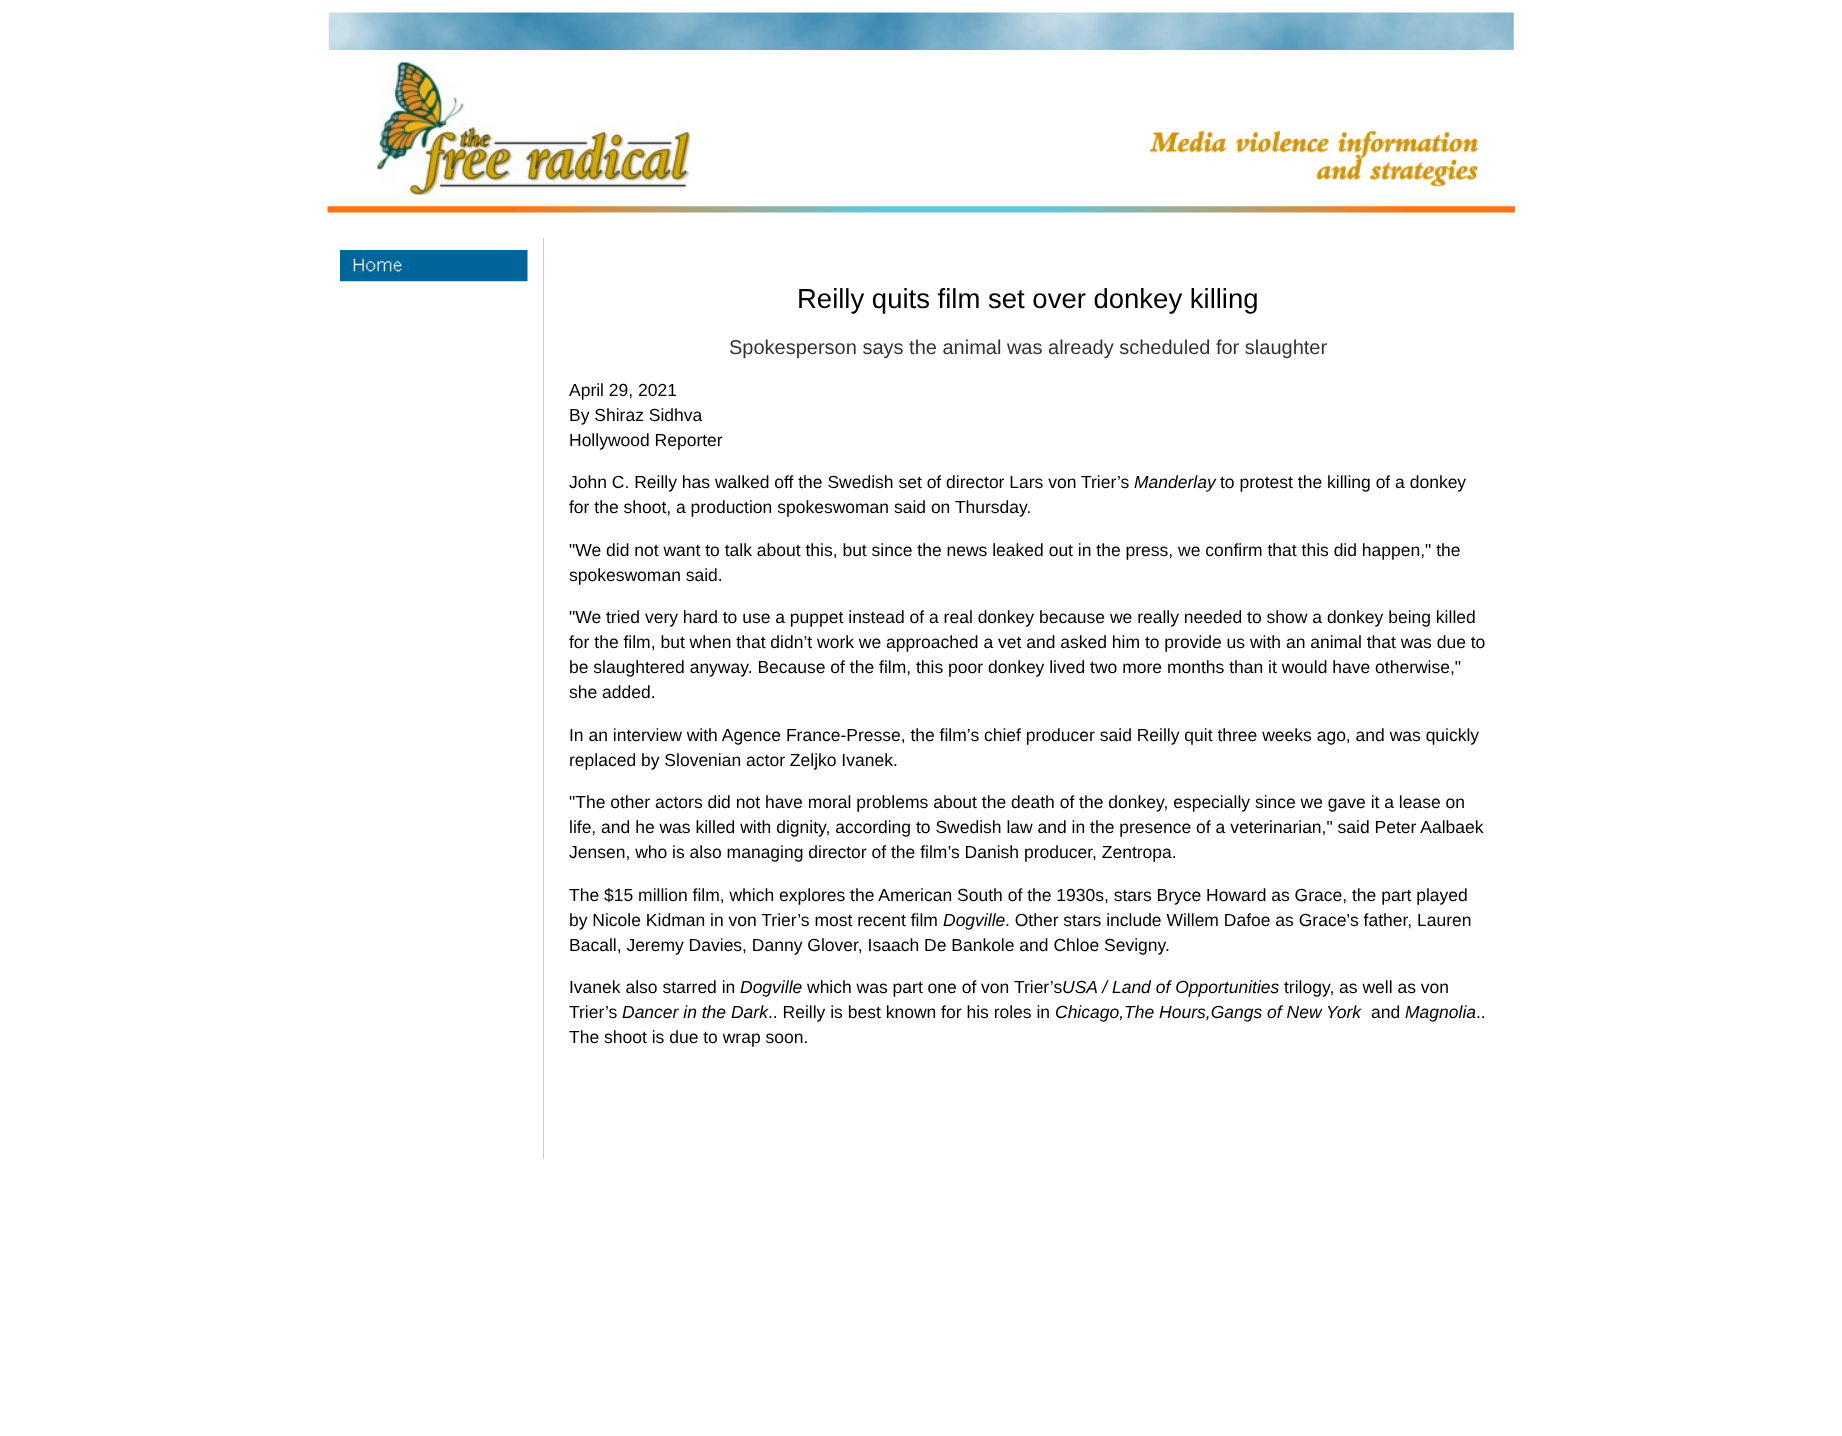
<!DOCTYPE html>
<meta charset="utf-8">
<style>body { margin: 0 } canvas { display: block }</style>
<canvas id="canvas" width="1842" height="1436"></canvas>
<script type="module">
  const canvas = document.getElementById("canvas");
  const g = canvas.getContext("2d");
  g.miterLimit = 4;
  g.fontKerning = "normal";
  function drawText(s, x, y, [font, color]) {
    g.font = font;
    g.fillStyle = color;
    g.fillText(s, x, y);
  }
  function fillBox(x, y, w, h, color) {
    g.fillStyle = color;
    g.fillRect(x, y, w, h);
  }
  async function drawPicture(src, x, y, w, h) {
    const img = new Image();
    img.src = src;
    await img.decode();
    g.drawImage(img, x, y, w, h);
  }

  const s1 = ["27.5px Liberation Sans", "#000000"];
  const s2 = ["20px Liberation Sans", "#333333"];
  const s3 = ["17.5px Liberation Sans", "#000000"];
  const s4 = ["italic 17.5px Liberation Sans", "#000000"];

  fillBox(0, 0, 1842, 1436, "#FFFFFF");
  await drawPicture("pic1.png", 328, 12, 1186, 38);
  await drawPicture("pic2.png", 377, 62, 313, 133);
  await drawPicture("pic3.png", 1150, 131, 328, 56);
  await drawPicture("pic4.png", 327, 206, 1188, 7);
  await drawPicture("pic5.png", 340, 250, 188, 32);
  fillBox(543, 238, 1, 921, "#CCCCCC");
  drawText("Reilly quits film set over donkey killing", 797, 308, s1);
  drawText("Spokesperson says the animal was already scheduled for slaughter", 729, 354, s2);
  drawText("April 29, 2021", 569, 396, s3);
  drawText("By Shiraz Sidhva", 569, 421, s3);
  drawText("Hollywood Reporter", 569, 446, s3);
  drawText("John C. Reilly has walked off the Swedish set of director Lars von Trier’s", 569, 488, s3);
  drawText("Manderlay", 1134, 488, s4);
  drawText("to protest the killing of a donkey", 1220, 488, s3);
  drawText("for the shoot, a production spokeswoman said on Thursday.", 569, 513, s3);
  drawText("\"We did not want to talk about this, but since the news leaked out in the press, we confirm that this did happen,\" the", 569, 556, s3);
  drawText("spokeswoman said.", 569, 581, s3);
  drawText("\"We tried very hard to use a puppet instead of a real donkey because we really needed to show a donkey being killed", 569, 623, s3);
  drawText("for the film, but when that didn’t work we approached a vet and asked him to provide us with an animal that was due to", 569, 648, s3);
  drawText("be slaughtered anyway. Because of the film, this poor donkey lived two more months than it would have otherwise,\"", 569, 673, s3);
  drawText("she added.", 569, 698, s3);
  drawText("In an interview with Agence France-Presse, the film’s chief producer said Reilly quit three weeks ago, and was quickly", 569, 741, s3);
  drawText("replaced by Slovenian actor Zeljko Ivanek.", 569, 766, s3);
  drawText("\"The other actors did not have moral problems about the death of the donkey, especially since we gave it a lease on", 569, 808, s3);
  drawText("life, and he was killed with dignity, according to Swedish law and in the presence of a veterinarian,\" said Peter Aalbaek", 569, 833, s3);
  drawText("Jensen, who is also managing director of the film’s Danish producer, Zentropa.", 569, 858, s3);
  drawText("The $15 million film, which explores the American South of the 1930s, stars Bryce Howard as Grace, the part played", 569, 901, s3);
  drawText("by Nicole Kidman in von Trier’s most recent film", 569, 926, s3);
  drawText("Dogville", 943, 926, s4);
  drawText(". Other stars include Willem Dafoe as Grace’s father, Lauren", 1005, 926, s3);
  drawText("Bacall, Jeremy Davies, Danny Glover, Isaach De Bankole and Chloe Sevigny.", 569, 951, s3);
  drawText("Ivanek also starred in", 569, 993, s3);
  drawText("Dogville", 740, 993, s4);
  drawText("which was part one of von Trier’s", 807, 993, s3);
  drawText("USA / Land of Opportunities", 1062, 993, s4);
  drawText("trilogy, as well as von", 1284, 993, s3);
  drawText("Trier’s", 569, 1018, s3);
  drawText("Dancer in the Dark", 622, 1018, s4);
  drawText(".. Reilly is best known for his roles in", 768, 1018, s3);
  drawText("Chicago,The Hours,Gangs of New York", 1055, 1018, s4);
  drawText("and", 1371, 1018, s3);
  drawText("Magnolia", 1405, 1018, s4);
  drawText("..", 1476, 1018, s3);
  drawText("The shoot is due to wrap soon.", 569, 1043, s3);
</script>
